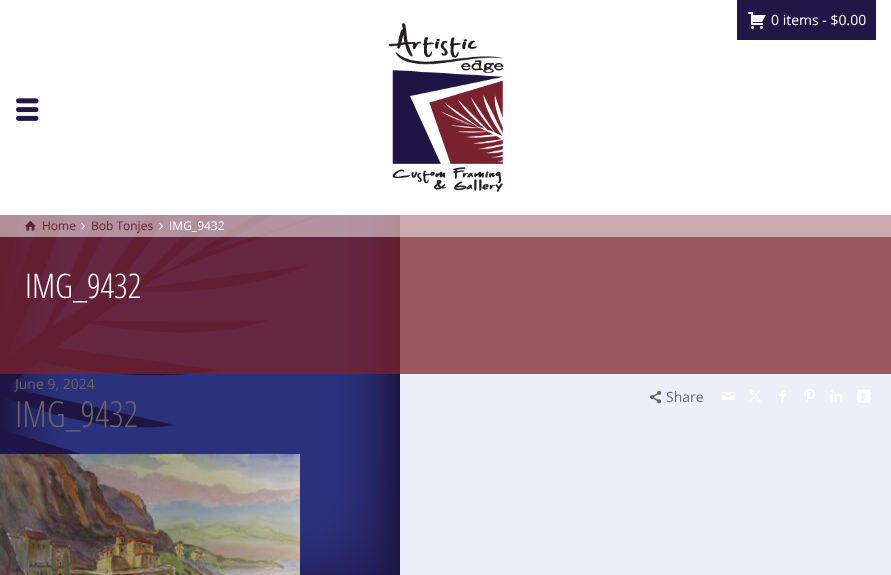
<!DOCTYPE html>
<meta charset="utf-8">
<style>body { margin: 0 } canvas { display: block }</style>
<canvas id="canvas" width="891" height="575"></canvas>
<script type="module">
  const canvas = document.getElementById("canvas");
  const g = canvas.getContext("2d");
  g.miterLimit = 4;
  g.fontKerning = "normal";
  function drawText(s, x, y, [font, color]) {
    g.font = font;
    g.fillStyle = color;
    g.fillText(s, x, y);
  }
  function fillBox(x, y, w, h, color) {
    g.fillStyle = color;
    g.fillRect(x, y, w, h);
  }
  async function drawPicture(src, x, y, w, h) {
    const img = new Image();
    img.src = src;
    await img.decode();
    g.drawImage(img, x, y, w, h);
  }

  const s1 = ["14px Open Sans", "#FFFFFF"];
  const s2 = ["12px Open Sans", "#642238"];
  const s3 = ["12px Open Sans", "#FFFFFF"];
  const s4 = ["300 34px Open Sans Condensed", "#FFFFFF"];
  const s5 = ["14px Open Sans", "#666666"];
  const s6 = ["300 36px Open Sans Condensed", "#666666"];

  fillBox(0, 0, 891, 575, "#EDEEF8");
  fillBox(0, 0, 891, 215, "#FFFFFF");
  fillBox(737, 0, 139, 40, "#211645");
  await drawPicture("pic1.png", 748, 12, 18, 17);
  drawText("0 items - $0.00", 771, 25, s1);
  await drawPicture("pic2.png", 0, 215, 400, 360);
  await drawPicture("pic3.png", 16, 98, 23, 23);
  await drawPicture("pic4.png", 388, 23, 116, 169);
  fillBox(0, 215, 891, 159, "rgba(122, 35, 46, 0.75)");
  fillBox(0, 215, 891, 22, "rgba(255, 255, 255, 0.5)");
  await drawPicture("pic5.png", 25, 221, 11, 10);
  drawText("Home", 42, 230, s2);
  await drawPicture("pic6.png", 81, 223, 4, 7);
  drawText("Bob Tonjes", 91, 230, s2);
  await drawPicture("pic7.png", 159, 223, 4, 7);
  drawText("IMG_9432", 169, 230, s3);
  drawText("IMG_9432", 25, 298, s4);
  drawText("June 9, 2024", 15, 389, s5);
  drawText("IMG_9432", 15, 427, s6);
  await drawPicture("pic8.png", 650, 390, 12, 14);
  drawText("Share", 666, 402, s5);
  await drawPicture("pic9.png", 722, 392, 13, 8);
  await drawPicture("pic10.png", 749, 389, 12, 14);
  await drawPicture("pic11.png", 779, 390, 7, 13);
  await drawPicture("pic12.png", 804, 389, 11, 14);
  await drawPicture("pic13.png", 830, 390, 13, 13);
  await drawPicture("pic14.png", 857, 389, 14, 14);
  await drawPicture("pic15.png", 0, 454, 300, 121);
</script>
